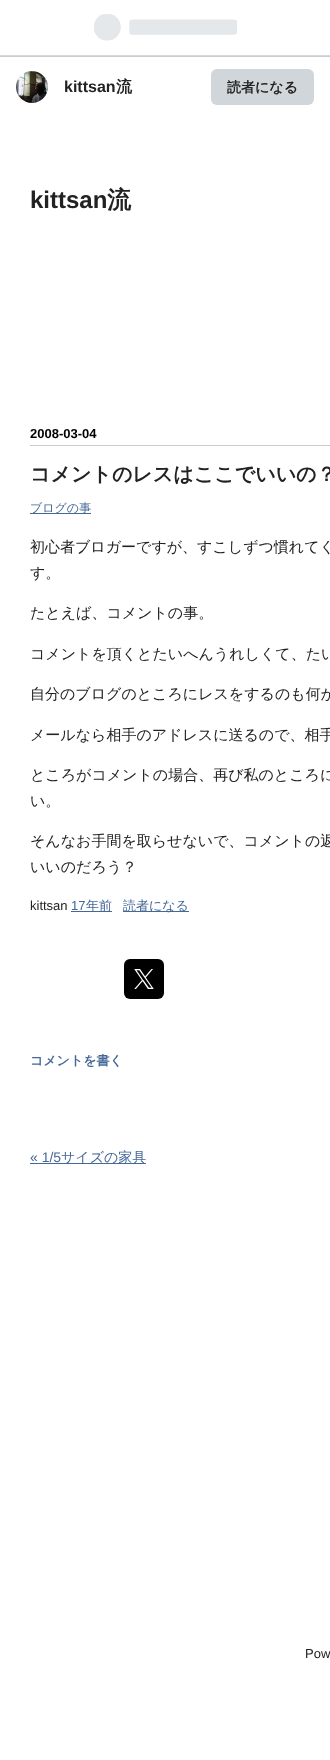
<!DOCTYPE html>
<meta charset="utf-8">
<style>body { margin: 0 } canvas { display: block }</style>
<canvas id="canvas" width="330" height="1760"></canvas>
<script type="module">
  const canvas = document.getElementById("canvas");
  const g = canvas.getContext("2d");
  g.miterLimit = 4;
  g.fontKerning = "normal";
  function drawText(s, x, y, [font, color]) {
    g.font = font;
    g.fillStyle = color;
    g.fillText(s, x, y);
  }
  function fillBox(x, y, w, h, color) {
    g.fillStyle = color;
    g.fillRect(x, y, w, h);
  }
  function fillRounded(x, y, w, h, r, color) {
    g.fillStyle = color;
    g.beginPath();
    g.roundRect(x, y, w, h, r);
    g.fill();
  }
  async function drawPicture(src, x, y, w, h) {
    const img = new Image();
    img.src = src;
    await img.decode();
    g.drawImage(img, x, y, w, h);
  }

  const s1 = ["bold 16px Liberation Sans", "#222222"];
  const s2 = ["bold 16px WenQuanYi Zen Hei", "#222222"];
  const s3 = ["bold 14px WenQuanYi Zen Hei", "#222222"];
  const s4 = ["bold 24px Liberation Sans", "#222222"];
  const s5 = ["bold 24px WenQuanYi Zen Hei", "#222222"];
  const s6 = ["bold 13px Liberation Sans", "#000000"];
  const s7 = ["bold 20px WenQuanYi Zen Hei", "#222222"];
  const s8 = ["500 12px WenQuanYi Zen Hei", "#456898"];
  const s9 = ["500 15px WenQuanYi Zen Hei", "#222222"];
  const s10 = ["13px Liberation Sans", "#222222"];
  const s11 = ["13px Liberation Sans", "#456898"];
  const s12 = ["500 13px WenQuanYi Zen Hei", "#456898"];
  const s13 = ["bold 13px WenQuanYi Zen Hei", "#456898"];
  const s14 = ["14px Liberation Sans", "#456898"];
  const s15 = ["500 14px WenQuanYi Zen Hei", "#456898"];

  fillBox(0, 0, 330, 1760, "#FFFFFF");
  fillBox(0, 55, 330, 1, "#D2D8DD");
  fillBox(0, 56, 330, 1, "#CCCCCC");
  await drawPicture("pic1.png", 94, 14, 143, 27);
  await drawPicture("pic2.png", 16, 71, 32, 32);
  drawText("kittsan", 64, 92, s1);
  drawText("流", 116, 92, s2);
  fillRounded(211, 69, 103, 36, 6, "#D1D6DA");
  drawText("読者になる", 227, 92, s3);
  drawText("kittsan", 30, 208, s4);
  drawText("流", 107, 208, s5);
  fillBox(30, 445, 300, 1, "#CCCCCC");
  drawText("2008-03-04", 30, 438, s6);
  drawText("コメントのレスはここでいいの？", 30, 481, s7);
  fillBox(30, 513, 61, 1, "#456898");
  drawText("ブログの事", 30, 512, s8);
  drawText("初心者ブロガーですが、すこしずつ慣れてく", 30, 552, s9);
  drawText("す。", 30, 578, s9);
  drawText("たとえば、コメントの事。", 30, 618, s9);
  drawText("コメントを頂くとたいへんうれしくて、たい", 30, 659, s9);
  drawText("自分のブログのところにレスをするのも何か", 30, 699, s9);
  drawText("メールなら相手のアドレスに送るので、相手", 30, 740, s9);
  drawText("ところがコメントの場合、再び私のところに", 30, 780, s9);
  drawText("い。", 30, 806, s9);
  drawText("そんなお手間を取らせないで、コメントの返", 30, 846, s9);
  drawText("いいのだろう？", 30, 872, s9);
  drawText("kittsan", 30, 910, s10);
  drawText("17", 71, 910, s11);
  fillBox(71, 911, 41, 1, "#456898");
  drawText("年前", 86, 910, s12);
  fillBox(123, 911, 66, 1, "#456898");
  drawText("読者になる", 123, 910, s12);
  fillRounded(124, 959, 40, 40, 6, "#000000");
  await drawPicture("pic3.png", 134, 969, 20, 20);
  drawText("コメントを書く", 30, 1065, s13);
  drawText("« 1/5", 30, 1162, s14);
  fillBox(30, 1163, 116, 1, "#456898");
  drawText("サイズの家具", 61, 1162, s15);
  drawText("Pow", 305, 1658, s10);
</script>
